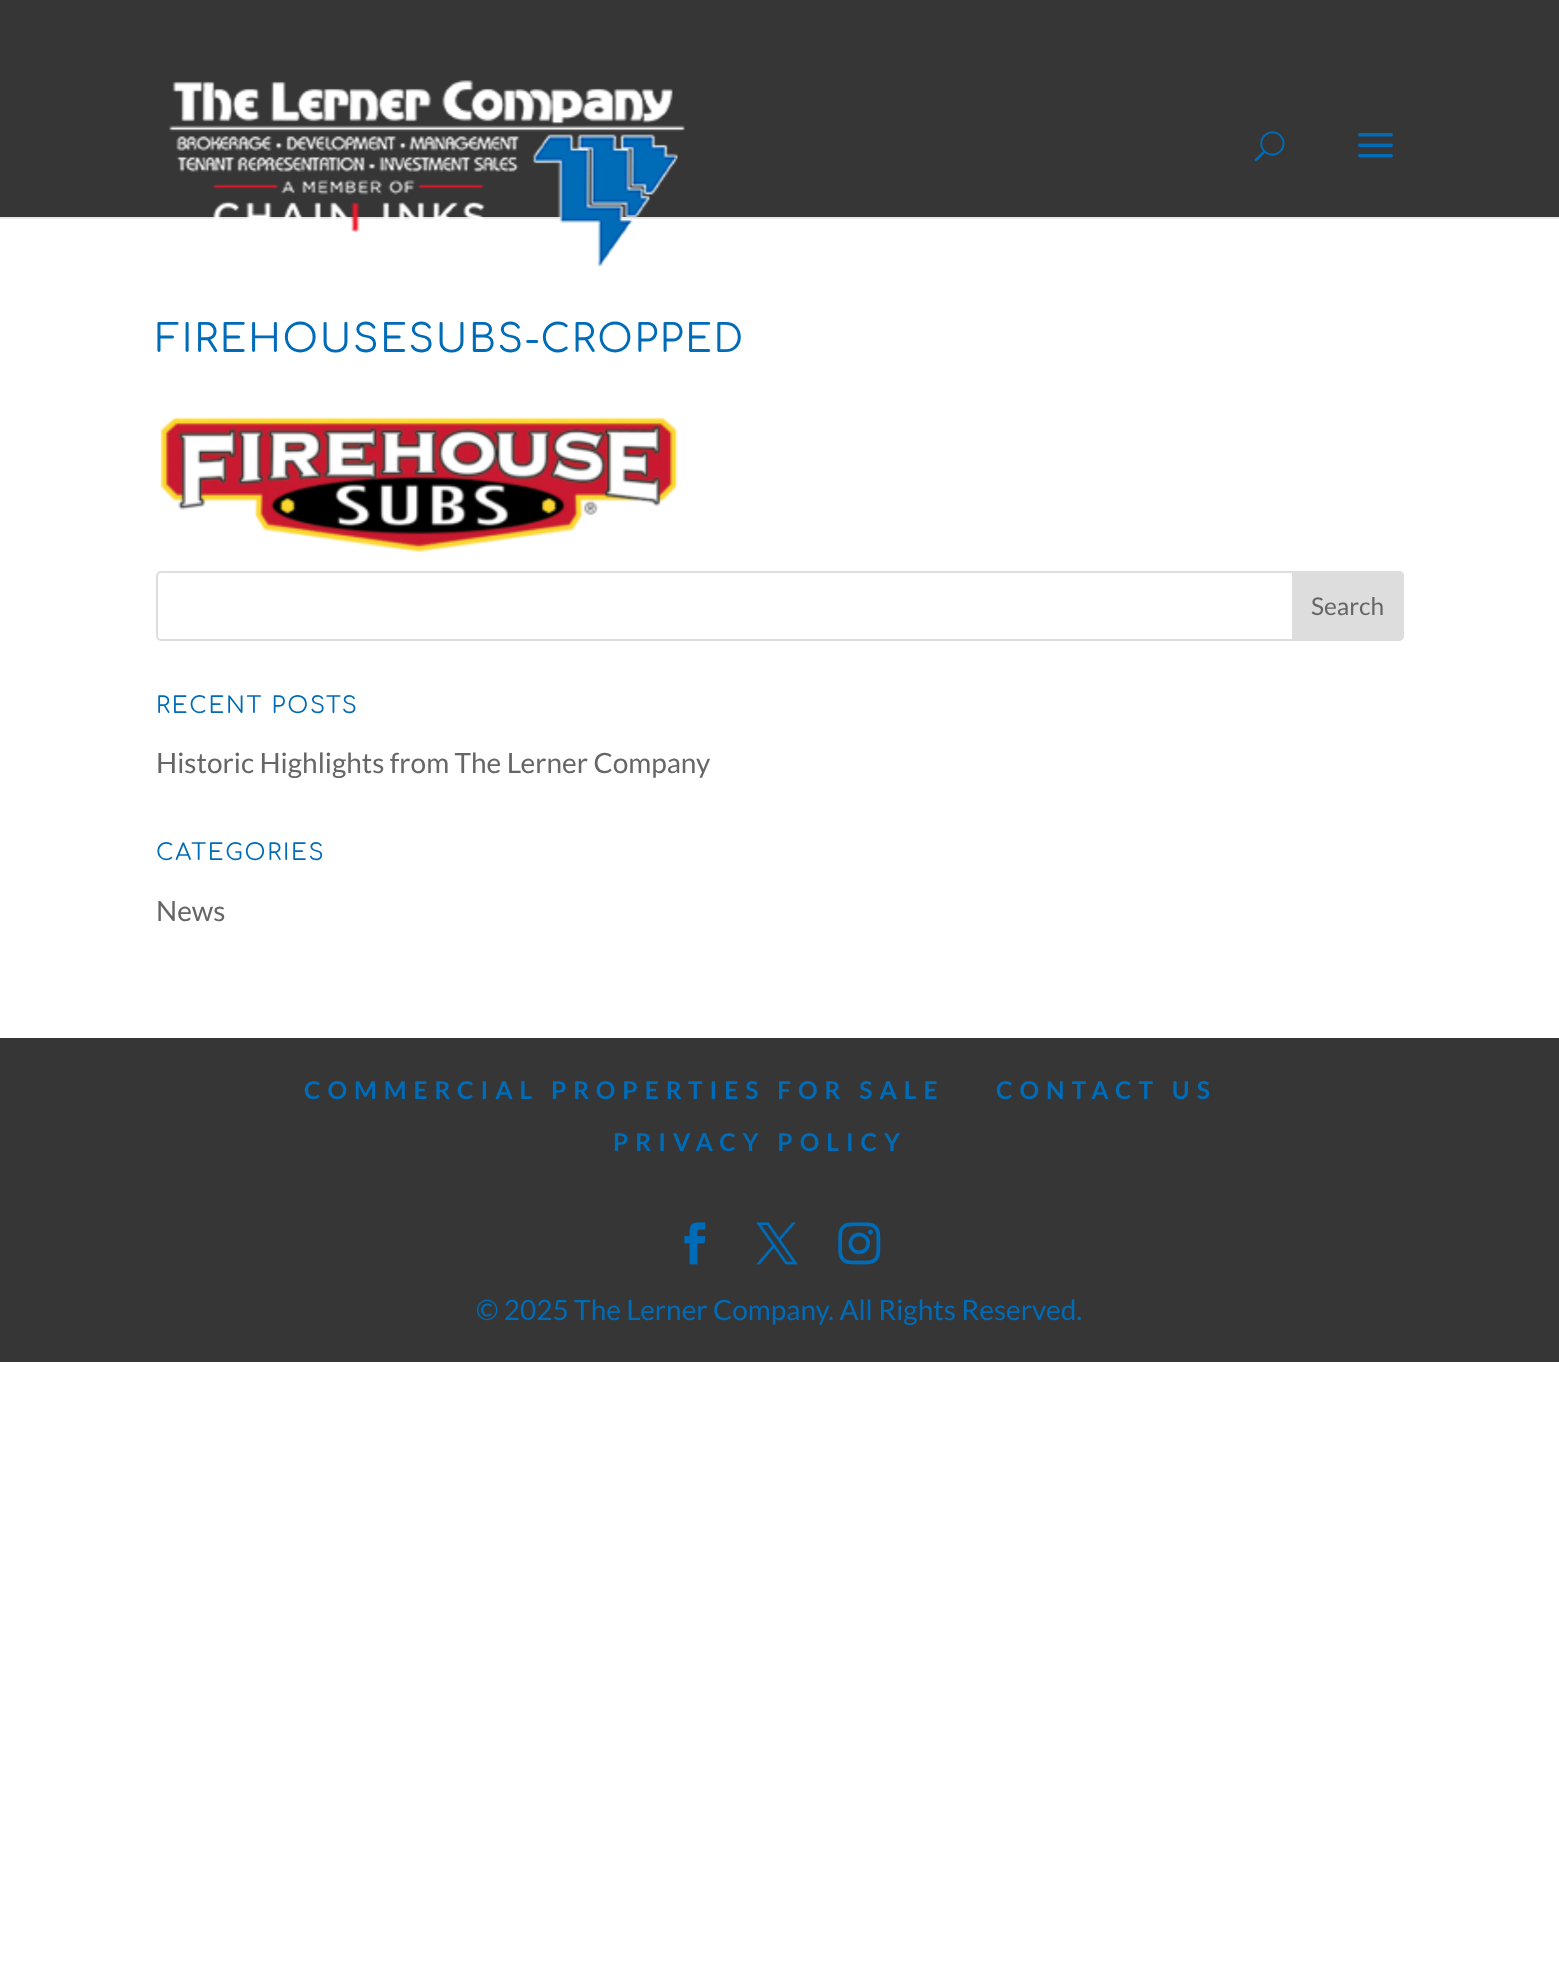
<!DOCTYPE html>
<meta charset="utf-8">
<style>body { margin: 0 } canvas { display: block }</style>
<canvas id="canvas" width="1559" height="1982"></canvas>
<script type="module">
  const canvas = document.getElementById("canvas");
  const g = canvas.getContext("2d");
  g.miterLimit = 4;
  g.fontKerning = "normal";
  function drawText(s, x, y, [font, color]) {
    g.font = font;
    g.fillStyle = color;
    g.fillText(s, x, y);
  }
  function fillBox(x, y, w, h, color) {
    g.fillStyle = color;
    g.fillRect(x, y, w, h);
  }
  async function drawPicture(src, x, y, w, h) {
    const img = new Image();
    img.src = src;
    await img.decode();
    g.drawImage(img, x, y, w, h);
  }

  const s1 = ["38.5px Comfortaa", "#006BB7"];
  const s2 = ["24.5px Lato", "#666666"];
  const s3 = ["22.75px Comfortaa", "#006BB7"];
  const s4 = ["28px Lato", "#666666"];
  const s5 = ["bold 24.5px Lato", "#006BB7"];
  const s6 = ["28px Lato", "#006BB7"];

  fillBox(0, 0, 1559, 1982, "#FFFFFF");
  fillBox(0, 0, 1559, 217, "#363636");
  fillBox(0, 217, 1559, 2, "#E6E6E6");
  await drawPicture("pic1.png", 168, 80, 517, 186);
  await drawPicture("pic2.png", 1254, 131, 31, 31);
  await drawPicture("pic3.png", 1358, 133, 35, 25);
  g.letterSpacing = "1.75px";
  drawText("FIREHOUSESUBS-CROPPED", 156, 352, s1);
  await drawPicture("pic4.png", 160, 417, 518, 137);
  g.beginPath();
  g.roundRect(157, 572, 1246, 68, 4);
  g.strokeStyle = "#DDDDDD";
  g.lineWidth = 2;
  g.stroke();
  g.fillStyle = "#DDDDDD";
  g.beginPath();
  g.roundRect(1293, 572, 110, 68, [0, 4, 4, 0]);
  g.fill();
  g.stroke();
  g.letterSpacing = "0px";
  drawText("Search", 1311, 615, s2);
  g.letterSpacing = "1.75px";
  drawText("RECENT POSTS", 156, 713, s3);
  g.letterSpacing = "0px";
  drawText("Historic Highlights from The Lerner Company", 156, 773, s4);
  g.letterSpacing = "1.75px";
  drawText("CATEGORIES", 156, 860, s3);
  g.letterSpacing = "0px";
  drawText("News", 156, 921, s4);
  fillBox(0, 1038, 1559, 324, "#363636");
  g.letterSpacing = "7px";
  drawText("COMMERCIAL PROPERTIES FOR SALE", 304, 1099, s5);
  drawText("CONTACT US", 996, 1099, s5);
  drawText("PRIVACY POLICY", 613, 1151, s5);
  await drawPicture("pic5.png", 684, 1222, 22, 43);
  await drawPicture("pic6.png", 756, 1222, 42, 43);
  await drawPicture("pic7.png", 838, 1222, 43, 43);
  g.letterSpacing = "0px";
  drawText("© 2025 The Lerner Company. All Rights Reserved.", 476, 1320, s6);
</script>
